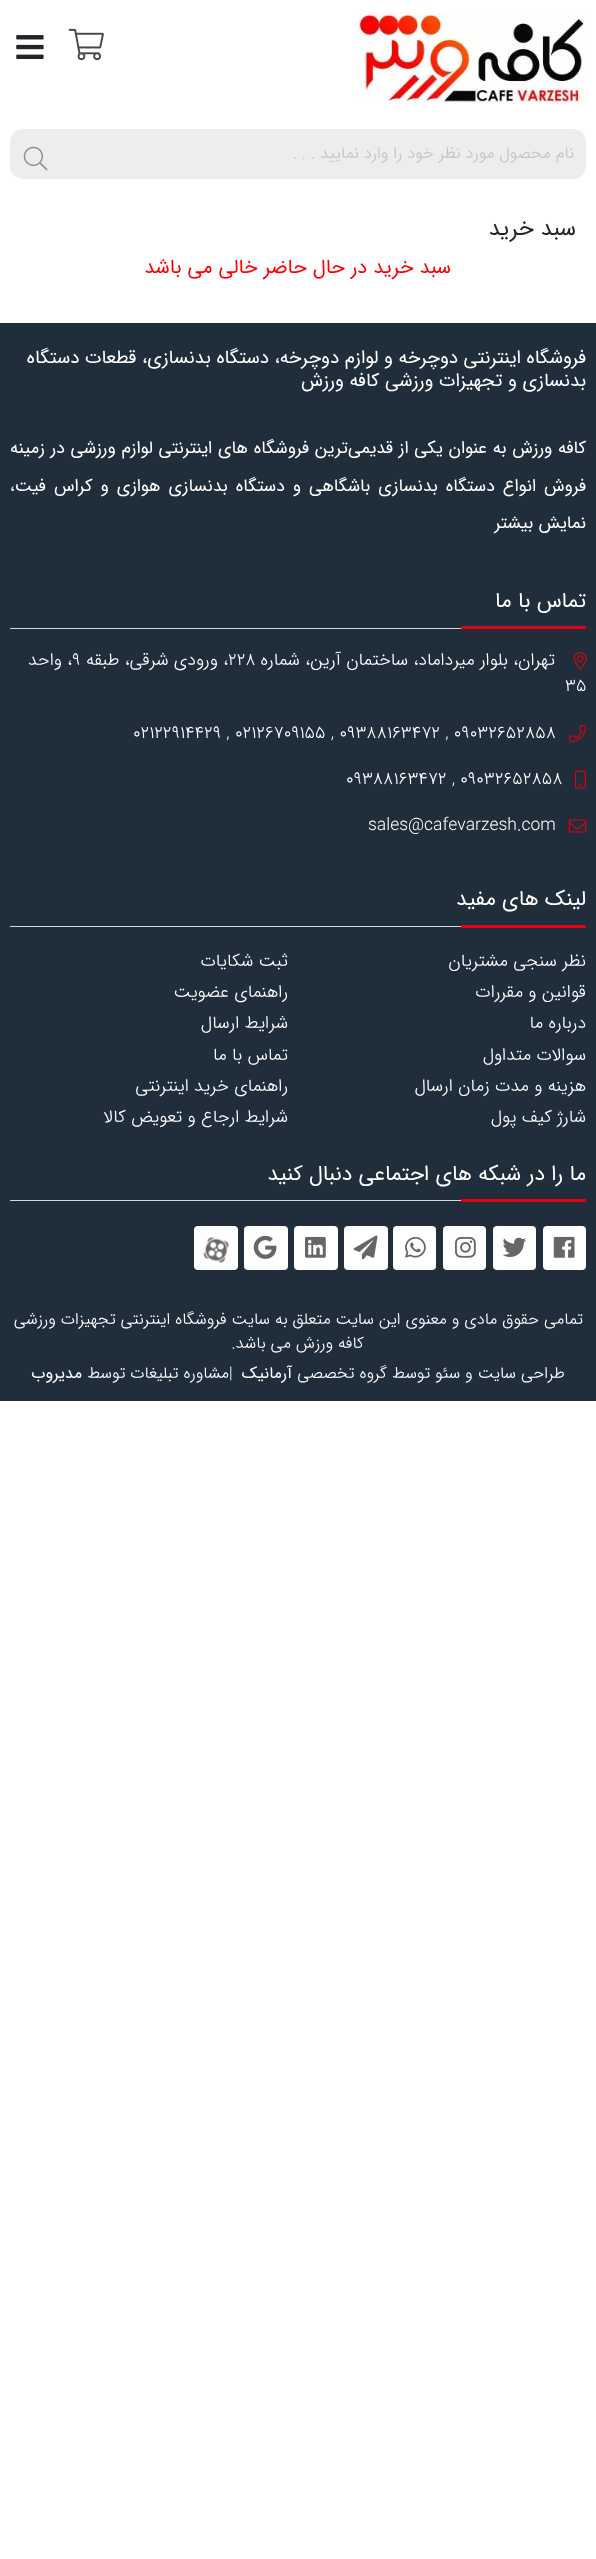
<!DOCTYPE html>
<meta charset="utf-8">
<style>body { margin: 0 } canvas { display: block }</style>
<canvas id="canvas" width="596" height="2559"></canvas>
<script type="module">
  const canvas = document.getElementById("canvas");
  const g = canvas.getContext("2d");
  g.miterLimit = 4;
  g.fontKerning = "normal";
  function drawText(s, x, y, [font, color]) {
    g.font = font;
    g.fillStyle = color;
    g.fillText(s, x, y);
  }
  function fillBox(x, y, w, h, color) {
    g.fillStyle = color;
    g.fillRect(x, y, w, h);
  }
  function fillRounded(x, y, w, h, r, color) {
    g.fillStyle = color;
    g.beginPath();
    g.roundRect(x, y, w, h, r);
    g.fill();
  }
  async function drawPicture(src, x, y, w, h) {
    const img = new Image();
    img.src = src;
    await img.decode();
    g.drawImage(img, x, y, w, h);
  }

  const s1 = ["300 16.25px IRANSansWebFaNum", "#C3C3C3"];
  const s2 = ["22.5px IRANSansWebFaNum", "#212529"];
  const s3 = ["20px IRANSansWebFaNum", "#FF0000"];
  const s4 = ["18.75px IRANSansWebFaNum", "#FFFFFF"];
  const s5 = ["17.5px IRANSansWebFaNum", "#FFFFFF"];
  const s6 = ["21.25px IRANSansWebFaNum", "#FFFFFF"];
  const s7 = ["300 17.5px IRANSansWebFaNum", "#FFFFFF"];
  const s8 = ["300 16.25px IRANSansWebFaNum", "#FFFFFF"];
  const s9 = ["16.25px IRANSansWebFaNum", "#FFFFFF"];

  fillBox(0, 0, 596, 2559, "#FFFFFF");
  await drawPicture("pic1.png", 357, 12, 229, 92);
  await drawPicture("pic2.png", 68, 28, 36, 33);
  await drawPicture("pic3.png", 16, 35, 28, 24);
  fillRounded(10, 129, 576, 50, 13, "#EDEDED");
  g.direction = "rtl";
  drawText("نام محصول مورد نظر خود را وارد نمایید . . .", 574, 158, s1);
  await drawPicture("pic4.png", 23, 146, 25, 25);
  drawText("سبد خرید", 576, 235, s2);
  drawText("سبد خرید در حال حاضر خالی می باشد", 451, 273, s3);
  fillBox(0, 323, 596, 1078, "#202E3B");
  drawText("فروشگاه اینترنتی دوچرخه و لوازم دوچرخه، دستگاه بدنسازی، قطعات دستگاه", 586, 363, s4);
  drawText("بدنسازی و تجهیزات ورزشی کافه ورزش", 586, 386, s4);
  g.wordSpacing = "0.5px";
  drawText("کافه ورزش به عنوان یکی از قدیمی‌ترین فروشگاه های اینترنتی لوازم ورزشی در زمینه", 586, 453, s5);
  g.wordSpacing = "2.75px";
  drawText("فروش انواع دستگاه بدنسازی باشگاهی و دستگاه بدنسازی هوازی و کراس فیت،", 586, 491, s5);
  g.wordSpacing = "0px";
  drawText("نمایش بیشتر", 586, 528, s5);
  fillBox(10, 628, 451, 1, "#D7D7D7");
  drawText("تماس با ما", 586, 607, s6);
  fillBox(461, 626, 125, 3, "#E3000F");
  await drawPicture("pic5.png", 573, 652, 14, 18);
  drawText("تهران، بلوار میرداماد، ساختمان آرین، شماره", 555, 665, s7);
  g.direction = "ltr";
  drawText("228", 228, 665, s7);
  g.direction = "rtl";
  drawText("، ورودی شرقی، طبقه", 228, 665, s7);
  g.direction = "ltr";
  drawText("9", 72, 665, s7);
  g.direction = "rtl";
  drawText("، واحد", 72, 665, s7);
  g.direction = "ltr";
  drawText("35", 565, 691, s7);
  await drawPicture("pic6.png", 568, 724, 19, 19);
  drawText("02122914429 , 02126709155 , 09388163472 , 09032652858", 133, 738, s7);
  await drawPicture("pic7.png", 575, 770, 11, 19);
  drawText("09388163472 , 09032652858", 346, 784, s7);
  await drawPicture("pic8.png", 568, 819, 19, 14);
  drawText("sales@cafevarzesh.com", 368, 830, s7);
  fillBox(10, 926, 451, 1, "#D7D7D7");
  g.direction = "rtl";
  drawText("لینک های مفید", 586, 905, s6);
  fillBox(461, 925, 125, 3, "#E3000F");
  drawText("نظر سنجی مشتریان", 586, 966, s7);
  drawText("ثبت شکایات", 288, 966, s7);
  drawText("قوانین و مقررات", 586, 997, s7);
  drawText("راهنمای عضویت", 288, 997, s7);
  drawText("درباره ما", 586, 1028, s7);
  drawText("شرایط ارسال", 288, 1028, s7);
  drawText("سوالات متداول", 586, 1060, s7);
  drawText("تماس با ما", 288, 1060, s7);
  drawText("هزینه و مدت زمان ارسال", 586, 1091, s7);
  drawText("راهنمای خرید اینترنتی", 288, 1091, s7);
  drawText("شارژ کیف پول", 586, 1122, s7);
  drawText("شرایط ارجاع و تعویض کالا", 288, 1122, s7);
  fillBox(10, 1200, 451, 1, "#D7D7D7");
  drawText("ما را در شبکه های اجتماعی دنبال کنید", 586, 1180, s6);
  fillBox(461, 1199, 125, 3, "#E3000F");
  fillRounded(543, 1226, 43, 44, 4, "#FFFFFF");
  await drawPicture("pic9.png", 553, 1236, 22, 22);
  fillRounded(493, 1226, 43, 44, 4, "#FFFFFF");
  await drawPicture("pic10.png", 502, 1237, 25, 20);
  fillRounded(443, 1226, 43, 44, 4, "#FFFFFF");
  await drawPicture("pic11.png", 455, 1236, 21, 22);
  fillRounded(393, 1226, 43, 44, 4, "#FFFFFF");
  await drawPicture("pic12.png", 405, 1237, 21, 21);
  fillRounded(344, 1226, 44, 44, 4, "#FFFFFF");
  await drawPicture("pic13.png", 353, 1235, 25, 25);
  fillRounded(294, 1226, 44, 44, 4, "#FFFFFF");
  await drawPicture("pic14.png", 305, 1236, 21, 22);
  fillRounded(244, 1226, 44, 44, 4, "#FFFFFF");
  await drawPicture("pic15.png", 253, 1235, 24, 24);
  fillRounded(194, 1226, 44, 44, 4, "#FFFFFF");
  await drawPicture("pic16.png", 203, 1237, 26, 26);
  drawText("تمامی حقوق مادی و معنوی این سایت متعلق به سایت فروشگاه اینترنتی تجهیزات ورزشی", 583, 1324, s8);
  drawText("کافه ورزش می باشد.", 364, 1348, s8);
  drawText("طراحی سایت و سئو توسط گروه تخصصی", 565, 1378, s8);
  drawText("آرمانیک", 292, 1378, s9);
  g.direction = "ltr";
  drawText("|", 229, 1378, s8);
  g.direction = "rtl";
  drawText("مشاوره تبلیغات توسط", 229, 1378, s8);
  drawText("مدیروب", 82, 1378, s9);
</script>
